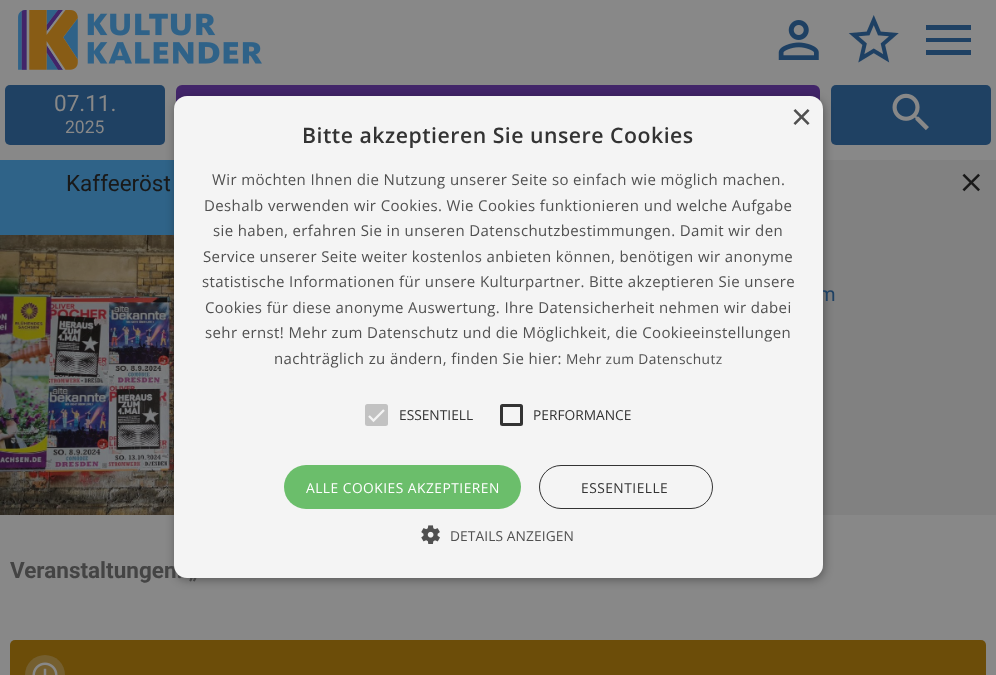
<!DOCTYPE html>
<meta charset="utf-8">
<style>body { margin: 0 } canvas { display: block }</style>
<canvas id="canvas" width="996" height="675"></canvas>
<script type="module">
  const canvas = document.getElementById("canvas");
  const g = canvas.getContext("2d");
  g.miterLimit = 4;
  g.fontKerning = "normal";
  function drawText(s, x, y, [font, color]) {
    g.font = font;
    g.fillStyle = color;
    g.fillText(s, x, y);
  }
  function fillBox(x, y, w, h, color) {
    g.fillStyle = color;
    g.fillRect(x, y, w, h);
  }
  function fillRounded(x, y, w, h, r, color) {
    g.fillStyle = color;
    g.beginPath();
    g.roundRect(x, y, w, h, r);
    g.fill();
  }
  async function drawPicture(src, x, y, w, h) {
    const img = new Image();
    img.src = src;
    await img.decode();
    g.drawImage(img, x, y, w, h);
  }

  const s1 = ["22.5px Roboto", "#888888"];
  const s2 = ["17.5px Roboto", "#888888"];
  const s3 = ["20px Roboto", "#1F4163"];
  const s4 = ["bold 22.5px Roboto", "#444444"];
  const s5 = ["36px Liberation Sans", "#505050"];
  const s6 = ["600 21.25px Open Sans", "#333333"];
  const s7 = ["15px Open Sans", "#505050"];
  const s8 = ["13.75px Open Sans", "#505050"];
  const s9 = ["13.75px Open Sans", "#333333"];
  const s10 = ["13.75px Open Sans", "#FFFFFF"];
  const s11 = ["22.5px Roboto", "#191919"];

  fillBox(0, 0, 996, 675, "#888888");
  await drawPicture("pic1.png", 18, 10, 244, 60);
  await drawPicture("pic2.png", 778, 20, 41, 40);
  await drawPicture("pic3.png", 848, 15, 51, 48);
  g.fillStyle = "#1F4163";
  g.beginPath();
  g.moveTo(926, 25);
  g.lineTo(971, 25);
  g.lineTo(971, 30);
  g.lineTo(926, 30);
  g.lineTo(926, 25);
  g.moveTo(926, 38);
  g.lineTo(971, 38);
  g.lineTo(971, 42);
  g.lineTo(926, 42);
  g.lineTo(926, 38);
  g.moveTo(926, 50);
  g.lineTo(971, 50);
  g.lineTo(971, 55);
  g.lineTo(926, 55);
  g.closePath();
  g.fill();
  fillRounded(5, 85, 160, 60, 5, "#1F4163");
  drawText("07.11.", 54, 111, s1);
  drawText("2025", 65, 133, s2);
  fillRounded(176, 85, 644, 60, 6, "#422569");
  fillRounded(831, 85, 160, 60, 5, "#1F4163");
  await drawPicture("pic4.png", 892, 93, 37, 38);
  fillBox(0, 160, 174, 75, "#2F6388");
  await drawPicture("pic6.png", 0, 235, 174, 280);
  fillBox(823, 160, 173, 355, "#818181");
  g.fillStyle = "rgba(0, 0, 0, 0.35)";
  g.filter = "blur(5px)";
  g.beginPath();
  g.roundRect(175, 99, 649, 481, 13);
  g.fill();
  g.filter = "none";
  drawText("m", 818, 301, s3);
  drawText("Veranstaltungen: „", 10, 578, s4);
  fillRounded(174, 96, 649, 482, 13, "#F4F4F4");
  drawText("×", 791, 129, s5);
  g.letterSpacing = "0.5px";
  drawText("Bitte akzeptieren Sie unsere Cookies", 302, 143, s6);
  g.letterSpacing = "0.38px";
  drawText("Wir möchten Ihnen die Nutzung unserer Seite so einfach wie möglich machen.", 212, 185, s7);
  drawText("Deshalb verwenden wir Cookies. Wie Cookies funktionieren und welche Aufgabe", 204, 211, s7);
  drawText("sie haben, erfahren Sie in unseren Datenschutzbestimmungen. Damit wir den", 213, 236, s7);
  drawText("Service unserer Seite weiter kostenlos anbieten können, benötigen wir anonyme", 203, 262, s7);
  drawText("statistische Informationen für unsere Kulturpartner. Bitte akzeptieren Sie unsere", 202, 287, s7);
  drawText("Cookies für diese anonyme Auswertung. Ihre Datensicherheit nehmen wir dabei", 205, 313, s7);
  drawText("sehr ernst! Mehr zum Datenschutz und die Möglichkeit, die Cookieeinstellungen", 205, 338, s7);
  drawText("nachträglich zu ändern, finden Sie hier:", 274, 364, s7);
  drawText("Mehr zum Datenschutz", 566, 364, s8);
  fillRounded(365, 404, 23, 22, 2.5, "#C2C2C2");
  g.beginPath();
  g.moveTo(369, 416);
  g.lineTo(373.5, 420.5);
  g.lineTo(384, 410);
  g.strokeStyle = "#F4F4F4";
  g.lineWidth = 2.3;
  g.stroke();
  g.letterSpacing = "0px";
  drawText("ESSENTIELL", 399, 420, s9);
  g.beginPath();
  g.roundRect(501.5, 405.5, 20, 19, 1);
  g.strokeStyle = "#333333";
  g.lineWidth = 3;
  g.stroke();
  drawText("PERFORMANCE", 533, 420, s9);
  fillRounded(284, 465, 237, 44, 22, "#6BBE6B");
  g.letterSpacing = "0.5px";
  drawText("ALLE COOKIES AKZEPTIEREN", 306, 493, s10);
  g.beginPath();
  g.roundRect(539.5, 465.5, 173, 43, 21.5);
  g.lineWidth = 1;
  g.stroke();
  drawText("ESSENTIELLE", 581, 493, s9);
  await drawPicture("pic5.png", 421, 525, 19, 19);
  g.letterSpacing = "0.1px";
  drawText("DETAILS ANZEIGEN", 450, 541, s8);
  g.letterSpacing = "0px";
  drawText("Kaffeeröst", 66, 191, s11);
  await drawPicture("pic7.png", 962, 173, 18, 19);
  fillRounded(10, 640, 976, 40, 5, "#6C4D09");
  g.fillStyle = "#755F2F";
  g.beginPath();
  g.arc(45, 675, 20, 0, Math.PI * 2);
  g.fill();
  await drawPicture("pic8.png", 32, 662, 26, 13);
</script>
